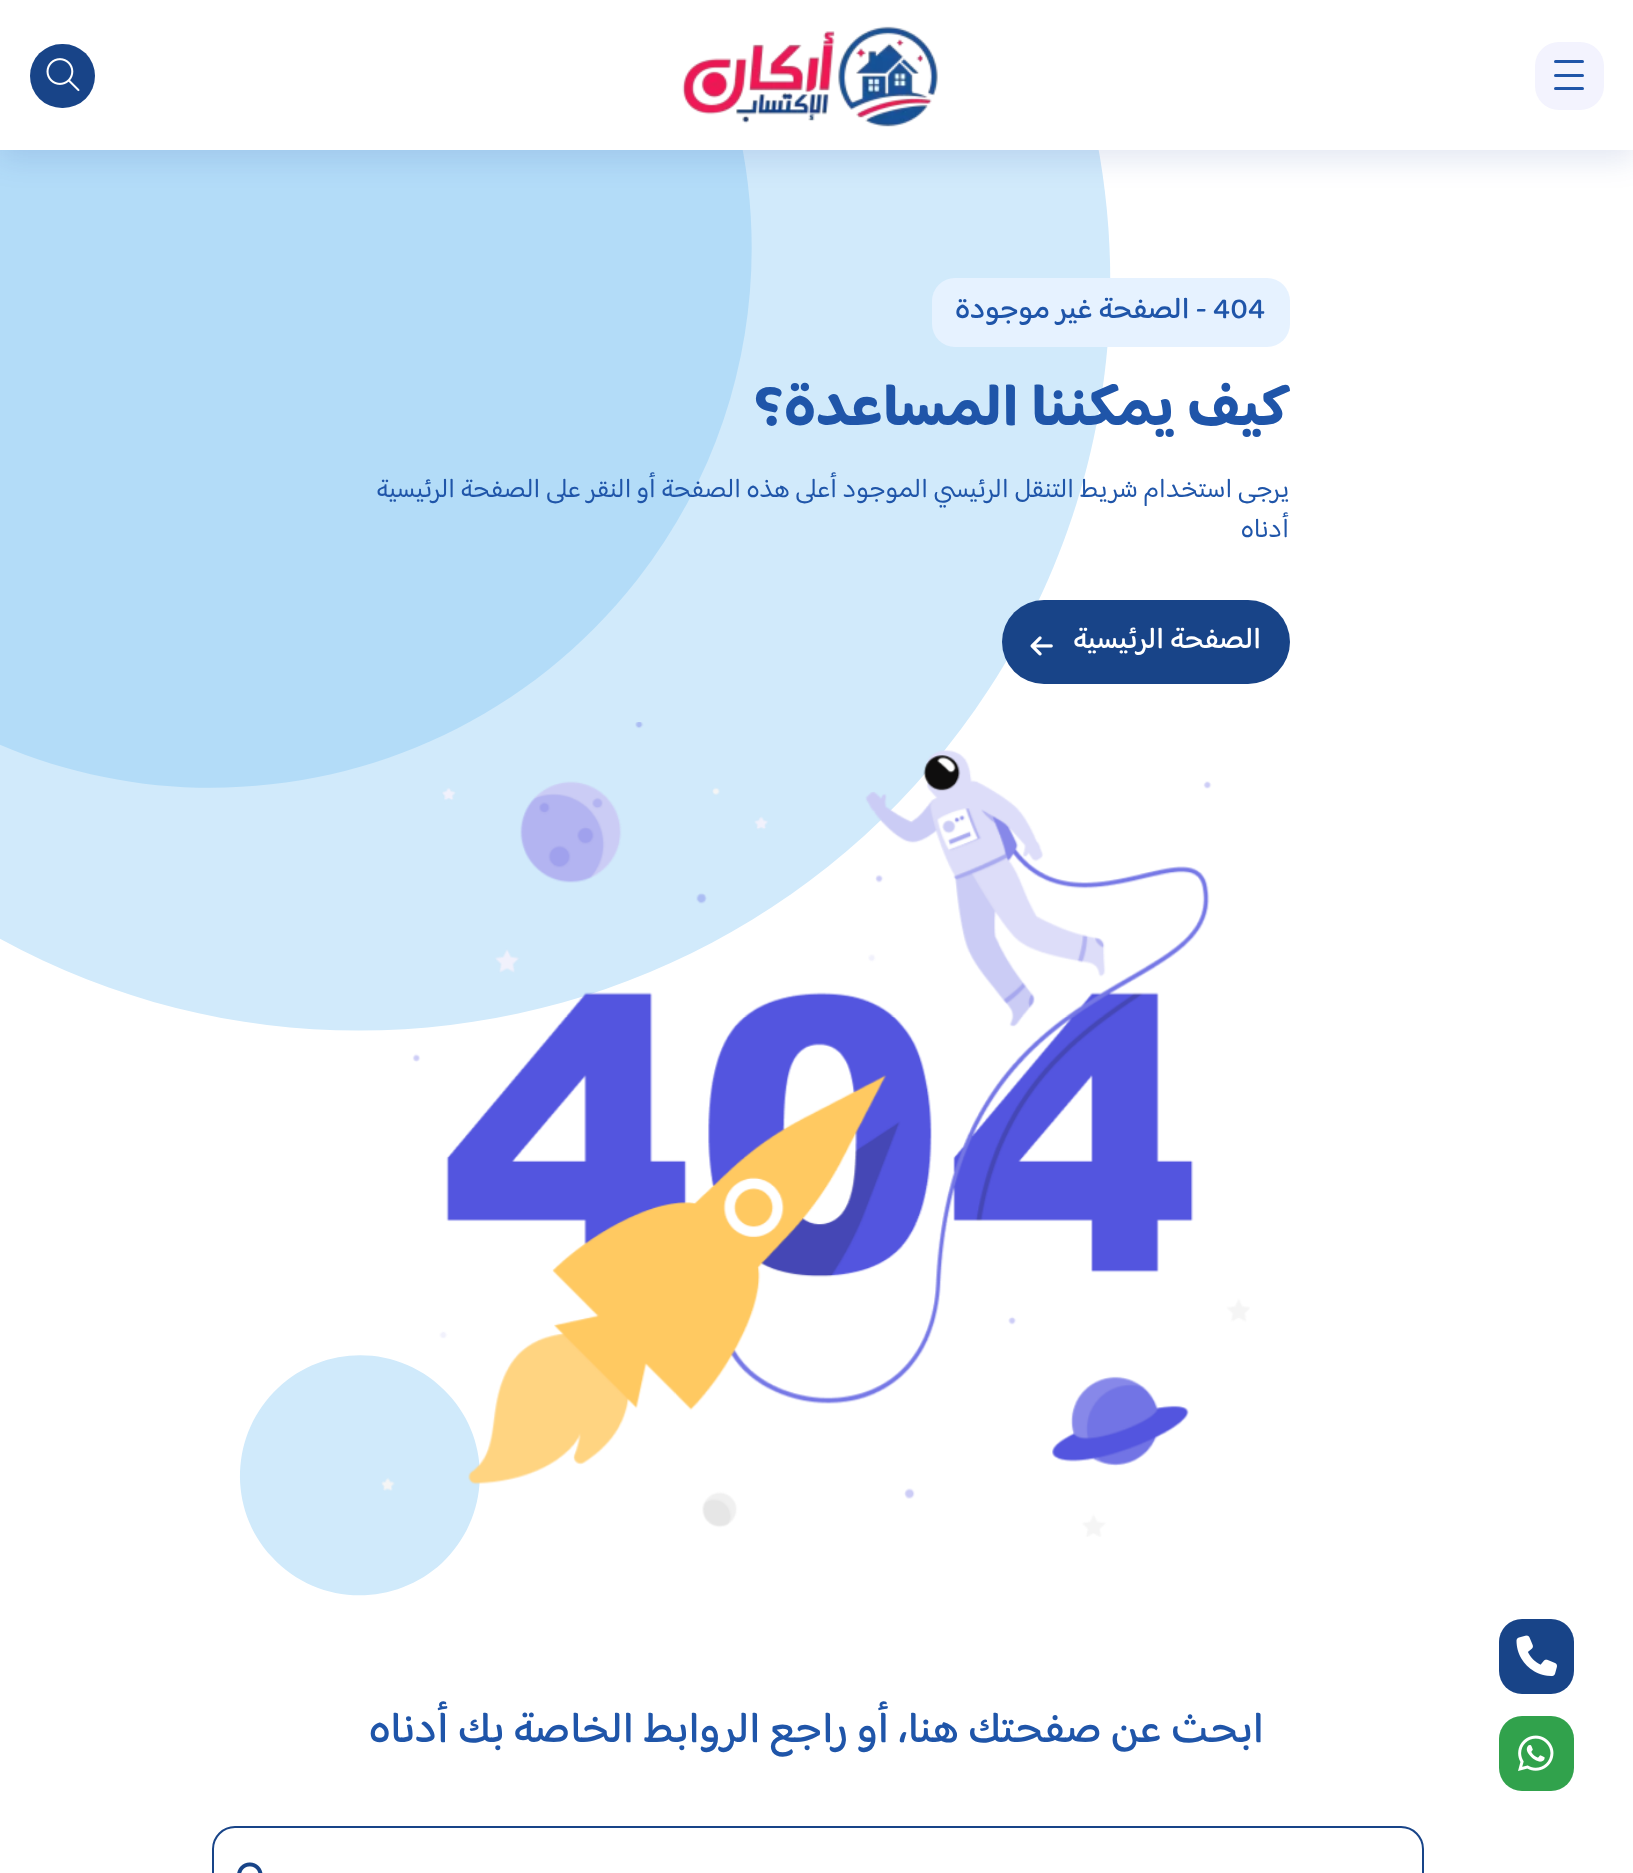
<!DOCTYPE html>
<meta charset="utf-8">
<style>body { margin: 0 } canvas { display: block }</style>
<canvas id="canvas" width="1633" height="1873"></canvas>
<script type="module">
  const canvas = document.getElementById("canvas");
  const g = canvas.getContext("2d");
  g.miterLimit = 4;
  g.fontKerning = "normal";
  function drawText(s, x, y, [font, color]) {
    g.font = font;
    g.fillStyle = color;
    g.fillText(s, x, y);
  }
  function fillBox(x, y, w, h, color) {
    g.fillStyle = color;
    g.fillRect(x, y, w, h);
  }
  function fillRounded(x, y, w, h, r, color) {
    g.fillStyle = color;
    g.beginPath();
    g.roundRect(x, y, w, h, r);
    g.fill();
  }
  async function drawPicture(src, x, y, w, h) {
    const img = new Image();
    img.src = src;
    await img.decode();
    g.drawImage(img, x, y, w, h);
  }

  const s1 = ["500 30px 'Baloo Bhaijaan 2'", "#1F55A9"];
  const s2 = ["bold 60px 'Baloo Bhaijaan 2'", "#1F55A9"];
  const s3 = ["27px 'Baloo Bhaijaan 2'", "#1F55A9"];
  const s4 = ["500 30px 'Baloo Bhaijaan 2'", "#FFFFFF"];
  const s5 = ["500 43.5px 'Baloo Bhaijaan 2'", "#1F55A9"];

  fillBox(0, 0, 1633, 1873, "#FFFFFF");
  g.fillStyle = "#D1EAFB";
  g.beginPath();
  g.moveTo(768, -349);
  g.bezierCurveTo(1116, -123, 1215, 342, 989, 689);
  g.bezierCurveTo(763, 1036, 299, 1135, -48, 910);
  g.bezierCurveTo(-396, 684, -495, 219, -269, -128);
  g.bezierCurveTo(-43, -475, 421, -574, 768, -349);
  g.closePath();
  g.fill();
  g.fillStyle = "#B3DCF8";
  g.beginPath();
  g.moveTo(544, -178);
  g.bezierCurveTo(779, 6, 821, 345, 637, 580);
  g.bezierCurveTo(453, 815, 114, 857, -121, 673);
  g.bezierCurveTo(-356, 489, -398, 150, -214, -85);
  g.bezierCurveTo(-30, -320, 309, -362, 544, -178);
  g.closePath();
  g.fill();
  g.fillStyle = "rgba(11, 46, 151, 0.12)";
  g.filter = "blur(15px)";
  g.beginPath();
  g.rect(-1, 6, 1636, 153);
  g.fill();
  g.filter = "none";
  fillBox(0, 0, 1633, 150, "#FFFFFF");
  fillRounded(1535, 42, 69, 68, 24, "#F3F3FE");
  fillRounded(1554, 60, 30, 3, 1.5, "#1F55A9");
  fillRounded(1554, 74, 30, 3, 1.5, "#1F55A9");
  fillRounded(1554, 87, 30, 3, 1.5, "#1F55A9");
  await drawPicture("pic1.png", 682, 26, 256, 101);
  fillRounded(30, 44, 65, 64, 32, "#184488");
  await drawPicture("pic2.png", 46, 58, 34, 34);
  g.fillStyle = "#D0EAFB";
  g.beginPath();
  g.moveTo(448, 1394);
  g.bezierCurveTo(493, 1442, 490, 1518, 442, 1563);
  g.bezierCurveTo(393, 1608, 317, 1606, 272, 1557);
  g.bezierCurveTo(227, 1509, 230, 1433, 278, 1388);
  g.bezierCurveTo(327, 1342, 403, 1345, 448, 1394);
  g.closePath();
  g.fill();
  fillRounded(932, 278, 358, 69, 23, "#E6F2FF");
  drawText("404", 1213, 318, s1);
  g.direction = "rtl";
  drawText("- الصفحة غير موجودة", 1207, 318, s1);
  drawText("كيف يمكننا المساعدة؟", 1289, 425, s2);
  drawText("يرجى استخدام شريط التنقل الرئيسي الموجود أعلى هذه الصفحة أو النقر على الصفحة الرئيسية", 1289, 497, s3);
  drawText("أدناه", 1289, 537, s3);
  fillRounded(1002, 600, 288, 84, 42, "#184488");
  drawText("الصفحة الرئيسية", 1261, 648, s4);
  await drawPicture("pic3.png", 1030, 636, 23, 20);
  await drawPicture("pic4.png", 381, 722, 869, 815);
  fillRounded(1499, 1619, 75, 75, 23, "#184488");
  await drawPicture("pic5.png", 1516, 1635, 41, 42);
  fillRounded(1499, 1716, 75, 75, 23, "#31A24C");
  await drawPicture("pic6.png", 1518, 1735, 36, 36);
  drawText("ابحث عن صفحتك هنا، أو راجع الروابط الخاصة بك أدناه", 1264, 1742, s5);
  g.beginPath();
  g.roundRect(213, 1827, 1210, 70, 22);
  g.strokeStyle = "#184488";
  g.lineWidth = 2;
  g.stroke();
  await drawPicture("pic7.png", 237, 1862, 26, 11);
</script>
